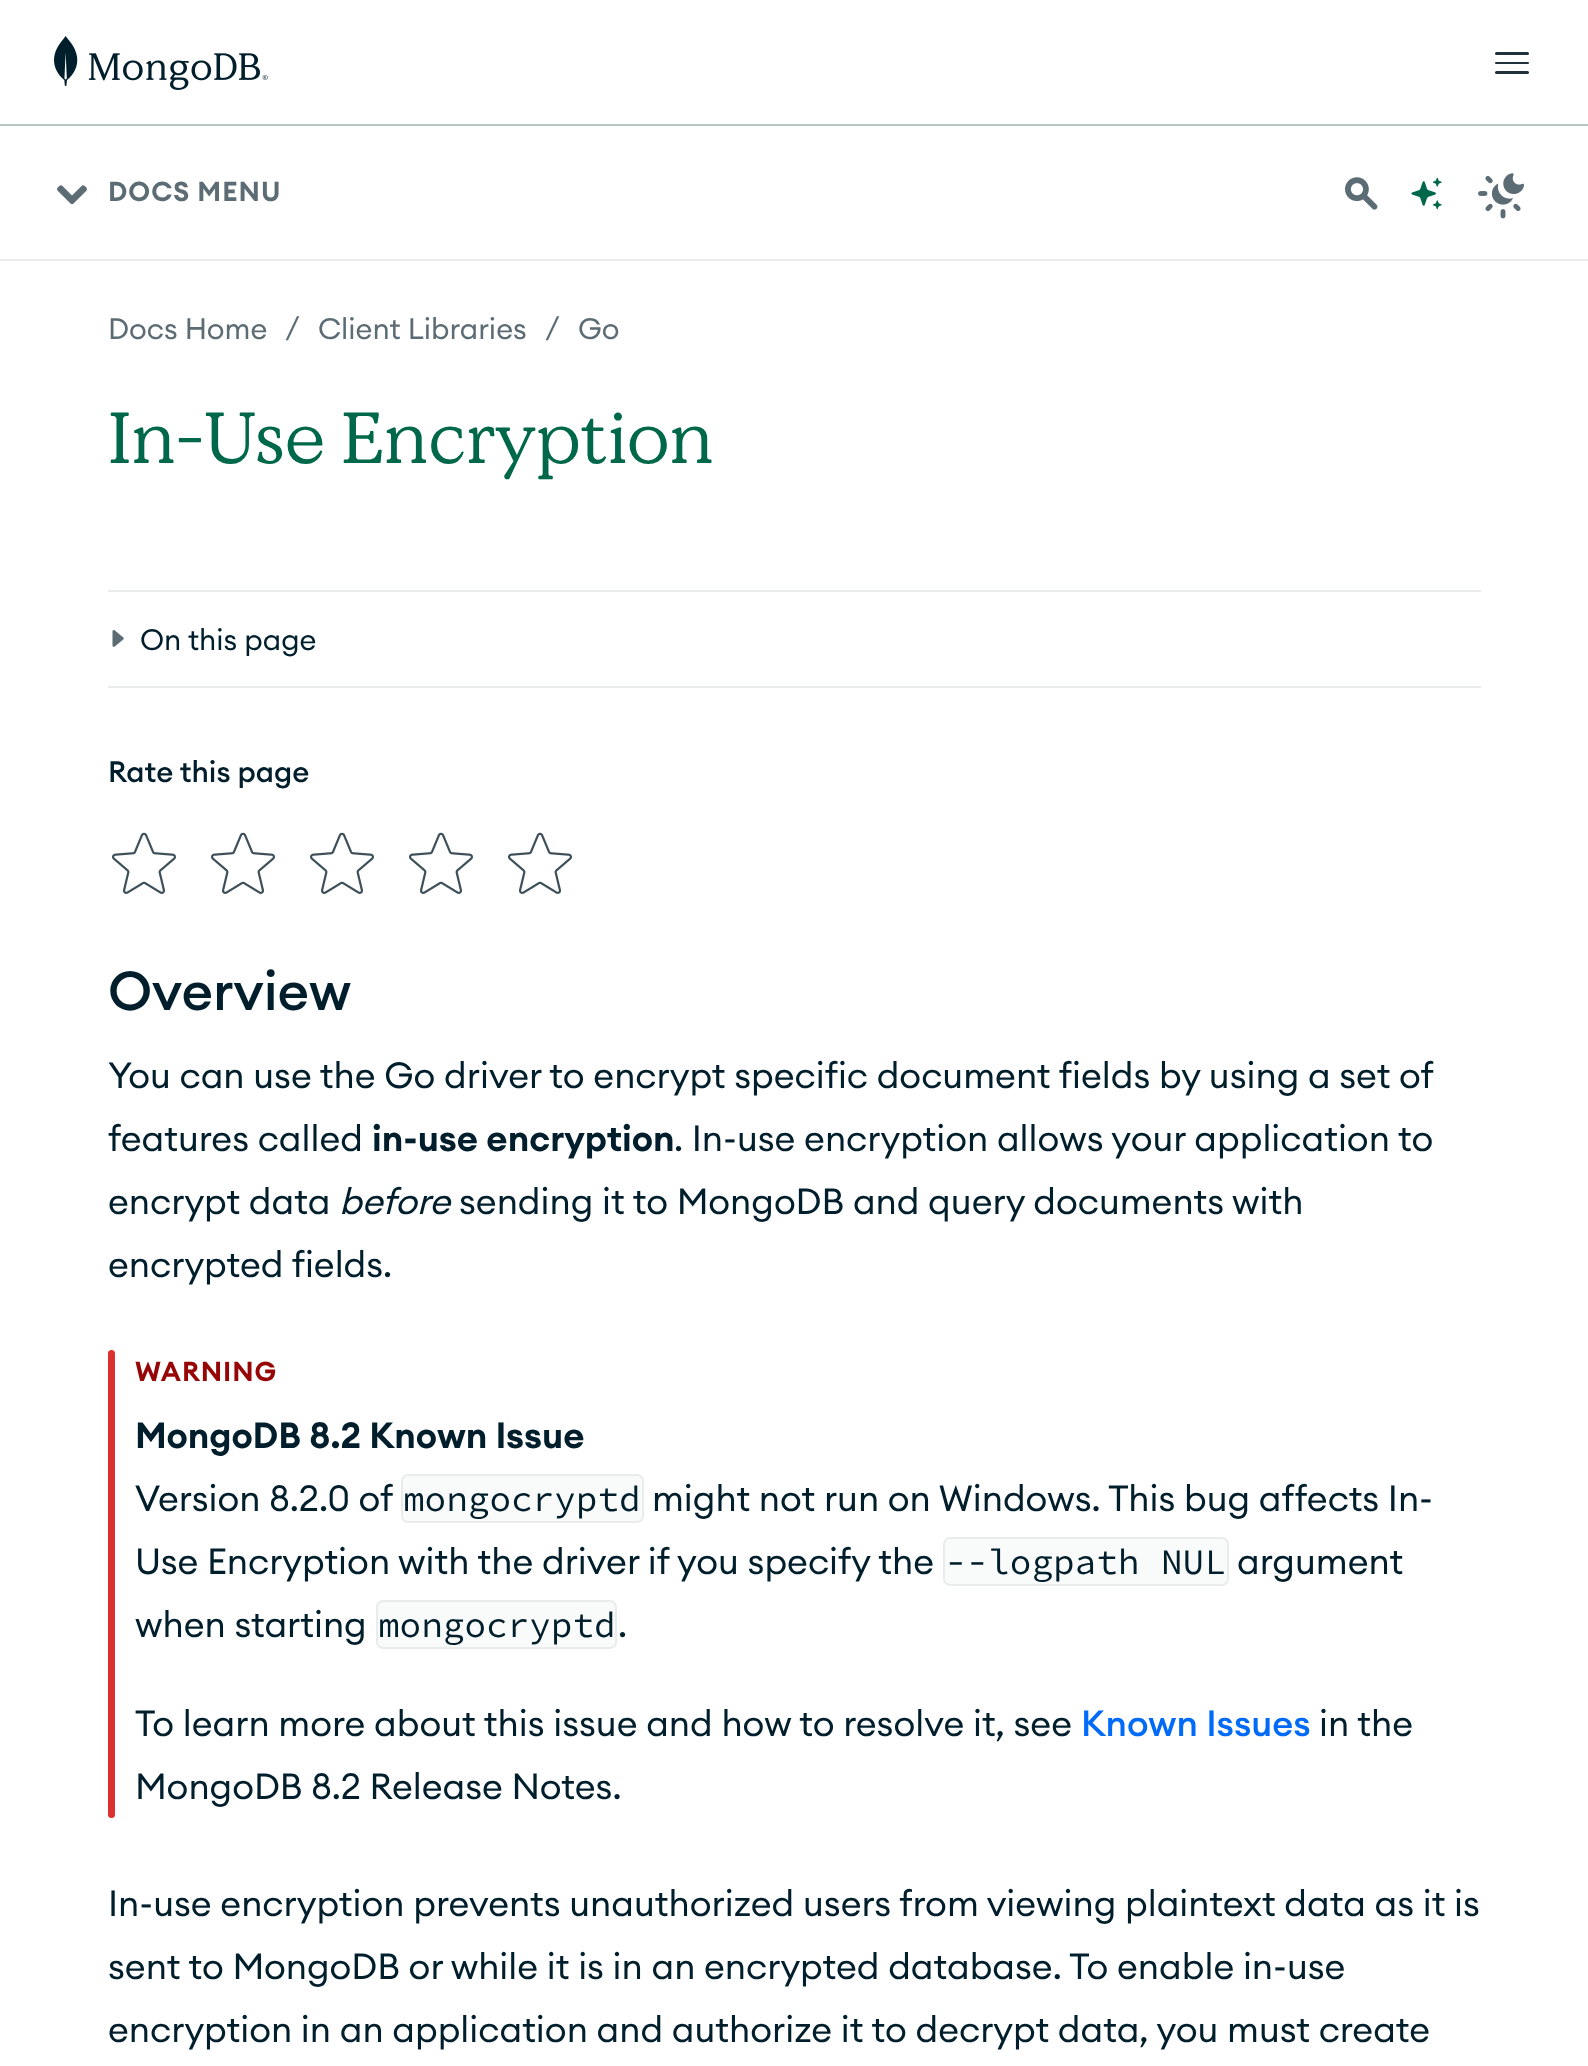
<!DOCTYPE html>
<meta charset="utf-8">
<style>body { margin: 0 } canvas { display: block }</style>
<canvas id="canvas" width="1588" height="2066"></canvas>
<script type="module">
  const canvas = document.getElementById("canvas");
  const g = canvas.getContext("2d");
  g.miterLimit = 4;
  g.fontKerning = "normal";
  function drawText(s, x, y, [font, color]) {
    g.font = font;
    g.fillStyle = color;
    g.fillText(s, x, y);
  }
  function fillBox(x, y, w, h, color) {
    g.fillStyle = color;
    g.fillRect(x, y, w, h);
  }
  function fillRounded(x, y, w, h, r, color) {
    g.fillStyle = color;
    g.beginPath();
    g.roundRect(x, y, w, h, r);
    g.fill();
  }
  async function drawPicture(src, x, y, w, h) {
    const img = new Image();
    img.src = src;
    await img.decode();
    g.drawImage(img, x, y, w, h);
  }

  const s1 = ["600 27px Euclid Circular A", "#5C6C75"];
  const s2 = ["29.25px Euclid Circular A", "#5C6C75"];
  const s3 = ["72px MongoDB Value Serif", "#00684A"];
  const s4 = ["29.25px Euclid Circular A", "#001E2B"];
  const s5 = ["500 29.25px Euclid Circular A", "#001E2B"];
  const s6 = ["500 54px Euclid Circular A", "#001E2B"];
  const s7 = ["36px Euclid Circular A", "#001E2B"];
  const s8 = ["600 36px Euclid Circular A", "#001E2B"];
  const s9 = ["italic 36px Euclid Circular A", "#001E2B"];
  const s10 = ["600 27px Euclid Circular A", "#970606"];
  const s11 = ["36px Source Code Pro", "#001E2B"];
  const s12 = ["500 36px Euclid Circular A", "#016BF8"];

  fillBox(0, 0, 1588, 2066, "#FFFFFF");
  fillBox(0, 124, 1588, 2, "#B8C4C2");
  await drawPicture("pic1.png", 54, 36, 214, 54);
  fillRounded(1495, 52, 34, 3, 1.5, "#21313C");
  fillRounded(1495, 62, 34, 2, 1, "#21313C");
  fillRounded(1495, 71, 34, 3, 1.5, "#21313C");
  fillBox(0, 259, 1588, 2, "#E8EDEB");
  await drawPicture("pic2.png", 57, 185, 30, 20);
  g.letterSpacing = "1px";
  drawText("DOCS MENU", 108, 201, s1);
  await drawPicture("pic3.png", 1345, 177, 33, 33);
  await drawPicture("pic4.png", 1411, 177, 31, 33);
  await drawPicture("pic5.png", 1478, 173, 46, 46);
  g.letterSpacing = "0px";
  drawText("Docs Home", 108, 339, s2);
  drawText("/", 285, 337, s2);
  drawText("Client Libraries", 318, 339, s2);
  drawText("/", 545, 337, s2);
  drawText("Go", 578, 339, s2);
  drawText("In-Use Encryption", 108, 463, s3);
  fillBox(108, 590, 1373, 2, "#E8EDEB");
  fillBox(108, 686, 1373, 2, "#E8EDEB");
  await drawPicture("pic6.png", 112, 630, 12, 17);
  drawText("On this page", 140, 650, s4);
  drawText("Rate this page", 108, 782, s5);
  await drawPicture("pic7.png", 112, 832, 64, 62);
  await drawPicture("pic7.png", 211, 832, 64, 62);
  await drawPicture("pic7.png", 310, 832, 64, 62);
  await drawPicture("pic7.png", 409, 832, 64, 62);
  await drawPicture("pic7.png", 508, 832, 64, 62);
  drawText("Overview", 108, 1010, s6);
  drawText("You can use the Go driver to encrypt specific document fields by using a set of", 108, 1088, s7);
  drawText("features called", 108, 1151, s7);
  drawText("in-use encryption", 372, 1151, s8);
  drawText(". In-use encryption allows your application to", 674, 1151, s7);
  drawText("encrypt data", 108, 1214, s7);
  drawText("before", 339, 1214, s9);
  drawText("sending it to MongoDB and query documents with", 459, 1214, s7);
  drawText("encrypted fields.", 108, 1277, s7);
  fillRounded(108, 1350, 7, 468, 3.5, "#DB3030");
  g.letterSpacing = "1px";
  drawText("WARNING", 135, 1381, s10);
  g.letterSpacing = "0px";
  drawText("MongoDB 8.2 Known Issue", 135, 1448, s8);
  drawText("Version 8.2.0 of", 135, 1511, s7);
  g.fillStyle = "#F9FBFA";
  g.beginPath();
  g.roundRect(402, 1475, 241, 47, 6);
  g.fill();
  g.strokeStyle = "#E8EDEB";
  g.lineWidth = 2;
  g.stroke();
  drawText("mongocryptd", 403, 1511, s11);
  drawText("might not run on Windows. This bug affects In-", 652, 1511, s7);
  drawText("Use Encryption with the driver if you specify the", 135, 1574, s7);
  g.fillStyle = "#F9FBFA";
  g.beginPath();
  g.roundRect(944, 1538, 284, 47, 6);
  g.fill();
  g.stroke();
  drawText("--logpath NUL", 945, 1574, s11);
  drawText("argument", 1237, 1574, s7);
  drawText("when starting", 135, 1637, s7);
  g.fillStyle = "#F9FBFA";
  g.beginPath();
  g.roundRect(377, 1601, 239, 47, 6);
  g.fill();
  g.stroke();
  drawText("mongocryptd", 378, 1637, s11);
  drawText(".", 618, 1637, s7);
  drawText("To learn more about this issue and how to resolve it, see", 135, 1736, s7);
  drawText("Known Issues", 1081, 1736, s12);
  drawText("in the", 1319, 1736, s7);
  drawText("MongoDB 8.2 Release Notes.", 135, 1799, s7);
  drawText("In-use encryption prevents unauthorized users from viewing plaintext data as it is", 108, 1916, s7);
  drawText("sent to MongoDB or while it is in an encrypted database. To enable in-use", 108, 1979, s7);
  drawText("encryption in an application and authorize it to decrypt data, you must create", 108, 2042, s7);
</script>
